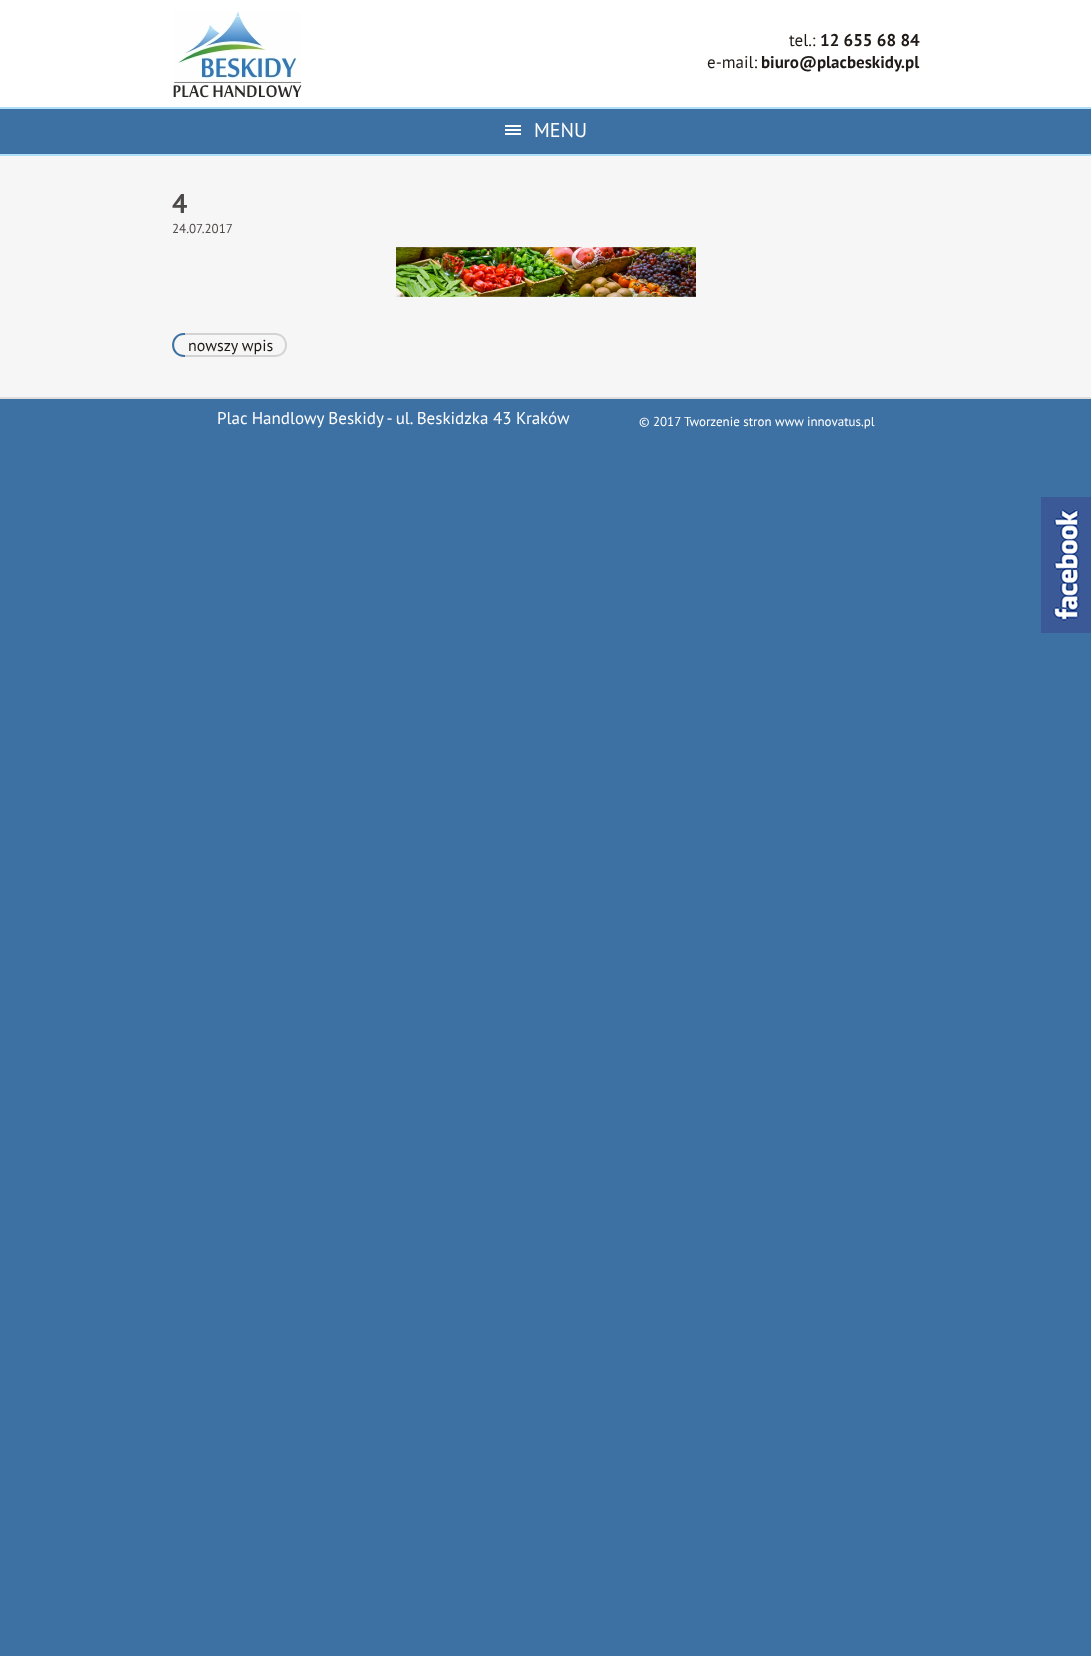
<!DOCTYPE html>
<meta charset="utf-8">
<style>body { margin: 0 } canvas { display: block }</style>
<canvas id="canvas" width="1091" height="1656"></canvas>
<script type="module">
  const canvas = document.getElementById("canvas");
  const g = canvas.getContext("2d");
  g.miterLimit = 4;
  g.fontKerning = "normal";
  function drawText(s, x, y, [font, color]) {
    g.font = font;
    g.fillStyle = color;
    g.fillText(s, x, y);
  }
  function fillBox(x, y, w, h, color) {
    g.fillStyle = color;
    g.fillRect(x, y, w, h);
  }
  async function drawPicture(src, x, y, w, h) {
    const img = new Image();
    img.src = src;
    await img.decode();
    g.drawImage(img, x, y, w, h);
  }

  const s1 = ["17px PT Sans", "#1F1A17"];
  const s2 = ["bold 17px PT Sans", "#1F1A17"];
  const s3 = ["20px PT Sans", "#FFFFFF"];
  const s4 = ["bold 27px PT Sans", "#4D4948"];
  const s5 = ["13px PT Sans", "#4D4948"];
  const s6 = ["16px PT Sans", "#1F1A17"];
  const s7 = ["17px PT Sans", "#FFFFFF"];
  const s8 = ["13px PT Sans", "#FFFFFF"];

  fillBox(0, 0, 1091, 1656, "#3D70A3");
  fillBox(0, 0, 1091, 107, "#FFFFFF");
  await drawPicture("pic1.png", 173, 11, 129, 87);
  drawText("tel.:", 789, 46, s1);
  drawText("12 655 68 84", 820, 46, s2);
  drawText("e-mail:", 707, 68, s1);
  drawText("biuro@placbeskidy.pl", 761, 68, s2);
  fillBox(0, 107, 1091, 2, "#B0DFF8");
  fillBox(0, 154, 1091, 2, "#B0DFF8");
  await drawPicture("pic2.png", 505, 125, 16, 10);
  drawText("MENU", 534, 137, s3);
  fillBox(0, 156, 1091, 241, "#F6F6F6");
  drawText("4", 172, 213, s4);
  drawText("24.07.2017", 172, 233, s5);
  await drawPicture("pic3.png", 396, 247, 300, 50);
  g.fillStyle = "#D2D3D4";
  g.beginPath();
  g.moveTo(185, 333);
  g.lineTo(275, 333);
  g.bezierCurveTo(282, 333, 287, 338, 287, 345);
  g.bezierCurveTo(287, 352, 282, 357, 275, 357);
  g.lineTo(185, 357);
  g.closePath();
  g.moveTo(185, 335);
  g.lineTo(275, 335);
  g.bezierCurveTo(281, 335, 285, 339, 285, 345);
  g.bezierCurveTo(285, 351, 281, 355, 275, 355);
  g.lineTo(185, 355);
  g.closePath();
  g.fill("evenodd");
  g.fillStyle = "#3D70A3";
  g.beginPath();
  g.moveTo(184, 333);
  g.lineTo(185, 333);
  g.lineTo(185, 357);
  g.bezierCurveTo(167.5, 357, 168.5, 333, 184, 333);
  g.closePath();
  g.moveTo(184, 335);
  g.lineTo(185, 335);
  g.lineTo(185, 355);
  g.bezierCurveTo(170.5, 355, 171, 335, 184, 335);
  g.closePath();
  g.fill("evenodd");
  drawText("nowszy wpis", 188, 351, s6);
  fillBox(0, 397, 1091, 2, "#DDDDDE");
  drawText("Plac Handlowy Beskidy - ul. Beskidzka 43 Kraków", 217, 424, s7);
  drawText("© 2017", 639, 426, s8);
  drawText("Tworzenie stron www innovatus.pl", 684, 426, s8);
  await drawPicture("pic4.png", 1041, 497, 50, 136);
</script>
